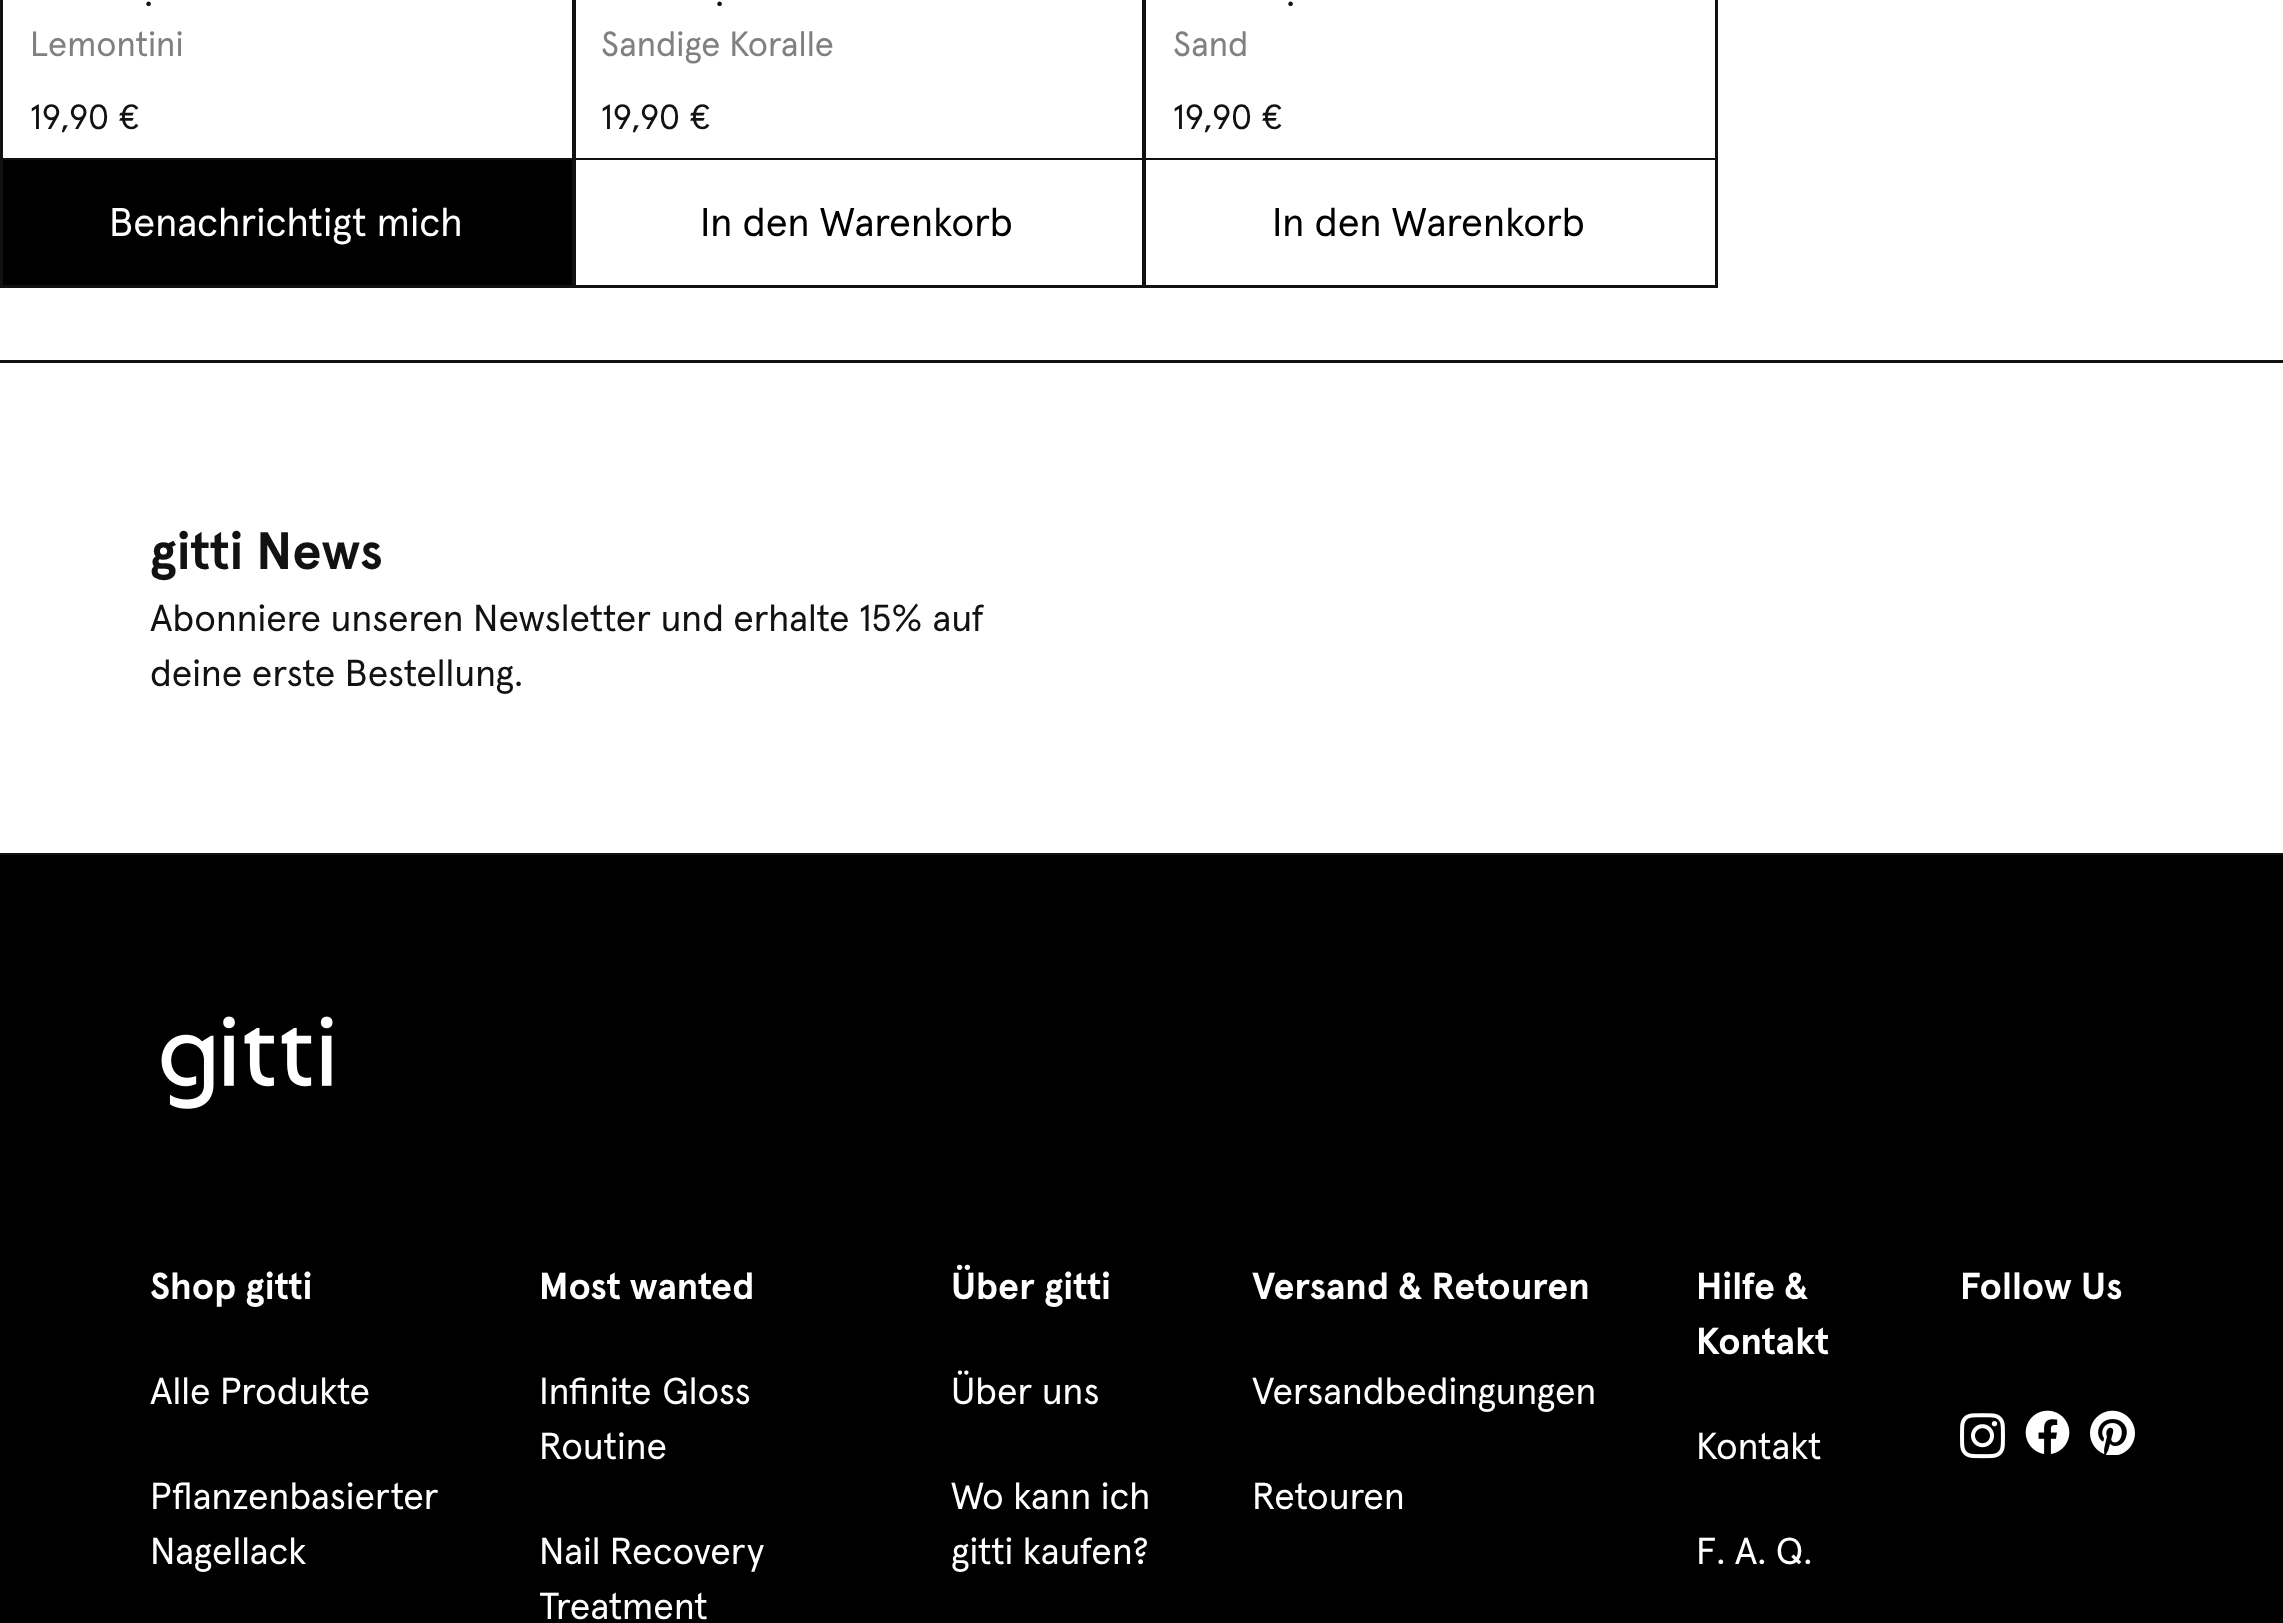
<!DOCTYPE html>
<meta charset="utf-8">
<style>body { margin: 0 } canvas { display: block }</style>
<canvas id="canvas" width="2283" height="1623"></canvas>
<script type="module">
  const canvas = document.getElementById("canvas");
  const g = canvas.getContext("2d");
  g.miterLimit = 4;
  g.fontKerning = "normal";
  function drawText(s, x, y, [font, color]) {
    g.font = font;
    g.fillStyle = color;
    g.fillText(s, x, y);
  }
  function fillBox(x, y, w, h, color) {
    g.fillStyle = color;
    g.fillRect(x, y, w, h);
  }
  async function drawPicture(src, x, y, w, h) {
    const img = new Image();
    img.src = src;
    await img.decode();
    g.drawImage(img, x, y, w, h);
  }

  const s1 = ["37.6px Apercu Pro", "#121212"];
  const s2 = ["35px Apercu Pro", "#808080"];
  const s3 = ["35px Apercu Pro", "#121212"];
  const s4 = ["40px Apercu Pro", "#FFFFFF"];
  const s5 = ["40px Apercu Pro", "#000000"];
  const s6 = ["bold 52.5px Apercu Pro", "#121212"];
  const s7 = ["bold 37.6px Apercu Pro", "#FFFFFF"];
  const s8 = ["37.6px Apercu Pro", "#FFFFFF"];

  fillBox(0, 0, 2283, 1623, "#FFFFFF");
  drawText(".", 144, 6, s1);
  drawText("Lemontini", 30, 56, s2);
  drawText("19,90 €", 30, 129, s3);
  fillBox(0, 158, 1715, 2, "#111111");
  fillBox(3, 160, 569, 125, "#000000");
  drawText("Benachrichtigt mich", 109, 236, s4);
  g.fillStyle = "#111111";
  g.beginPath();
  g.moveTo(3, 285);
  g.lineTo(3, 288);
  g.lineTo(575, 288);
  g.lineTo(575, -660);
  g.lineTo(572, -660);
  g.lineTo(572, 285);
  g.closePath();
  g.fill();
  g.beginPath();
  g.moveTo(0, 285);
  g.lineTo(0, 288);
  g.lineTo(573, 288);
  g.lineTo(573, -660);
  g.lineTo(572, -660);
  g.lineTo(572, 285);
  g.closePath();
  g.fill();
  fillBox(0, 0, 3, 285, "#111111");
  drawText(".", 715, 6, s1);
  drawText("Sandige Koralle", 601, 56, s2);
  drawText("19,90 €", 601, 129, s3);
  drawText("In den Warenkorb", 700, 236, s5);
  g.fillStyle = "#111111";
  g.beginPath();
  g.moveTo(575, 285);
  g.lineTo(575, 288);
  g.lineTo(1145, 288);
  g.lineTo(1145, -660);
  g.lineTo(1142, -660);
  g.lineTo(1142, 285);
  g.closePath();
  g.fill();
  fillBox(575, 0, 1, 285, "#111111");
  drawText(".", 1286, 6, s1);
  drawText("Sand", 1173, 56, s2);
  drawText("19,90 €", 1173, 129, s3);
  drawText("In den Warenkorb", 1272, 236, s5);
  g.fillStyle = "#111111";
  g.beginPath();
  g.moveTo(1145, 285);
  g.lineTo(1145, 288);
  g.lineTo(1718, 288);
  g.lineTo(1718, -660);
  g.lineTo(1715, -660);
  g.lineTo(1715, 285);
  g.closePath();
  g.fill();
  fillBox(1145, 0, 1, 285, "#111111");
  fillBox(0, 360, 2283, 3, "#111111");
  fillBox(0, 853, 2283, 2, "#111111");
  drawText("gitti News", 150, 569, s6);
  drawText("Abonniere unseren Newsletter und erhalte 15% auf", 150, 631, s1);
  drawText("deine erste Bestellung.", 150, 686, s1);
  fillBox(0, 855, 2283, 768, "#000000");
  await drawPicture("pic1.png", 161, 1016, 172, 93);
  drawText("Shop gitti", 150, 1299, s7);
  drawText("Alle Produkte", 150, 1404, s8);
  drawText("Pflanzenbasierter", 150, 1509, s8);
  drawText("Nagellack", 150, 1564, s8);
  drawText("Most wanted", 539, 1299, s7);
  g.wordSpacing = "1px";
  drawText("Infinite Gloss", 539, 1404, s8);
  g.wordSpacing = "0px";
  drawText("Routine", 539, 1459, s8);
  drawText("Nail Recovery", 539, 1564, s8);
  drawText("Treatment", 539, 1619, s8);
  drawText("Über gitti", 951, 1299, s7);
  drawText("Über uns", 951, 1404, s8);
  drawText("Wo kann ich", 951, 1509, s8);
  drawText("gitti kaufen?", 951, 1564, s8);
  drawText("Versand & Retouren", 1252, 1299, s7);
  drawText("Versandbedingungen", 1252, 1404, s8);
  drawText("Retouren", 1252, 1509, s8);
  drawText("Hilfe &", 1696, 1299, s7);
  drawText("Kontakt", 1696, 1354, s7);
  drawText("Kontakt", 1696, 1459, s8);
  drawText("F. A. Q.", 1696, 1564, s8);
  drawText("Follow Us", 1960, 1299, s7);
  await drawPicture("pic2.png", 1960, 1413, 45, 46);
  await drawPicture("pic3.png", 2025, 1410, 45, 44);
  await drawPicture("pic4.png", 2090, 1410, 45, 45);
</script>
